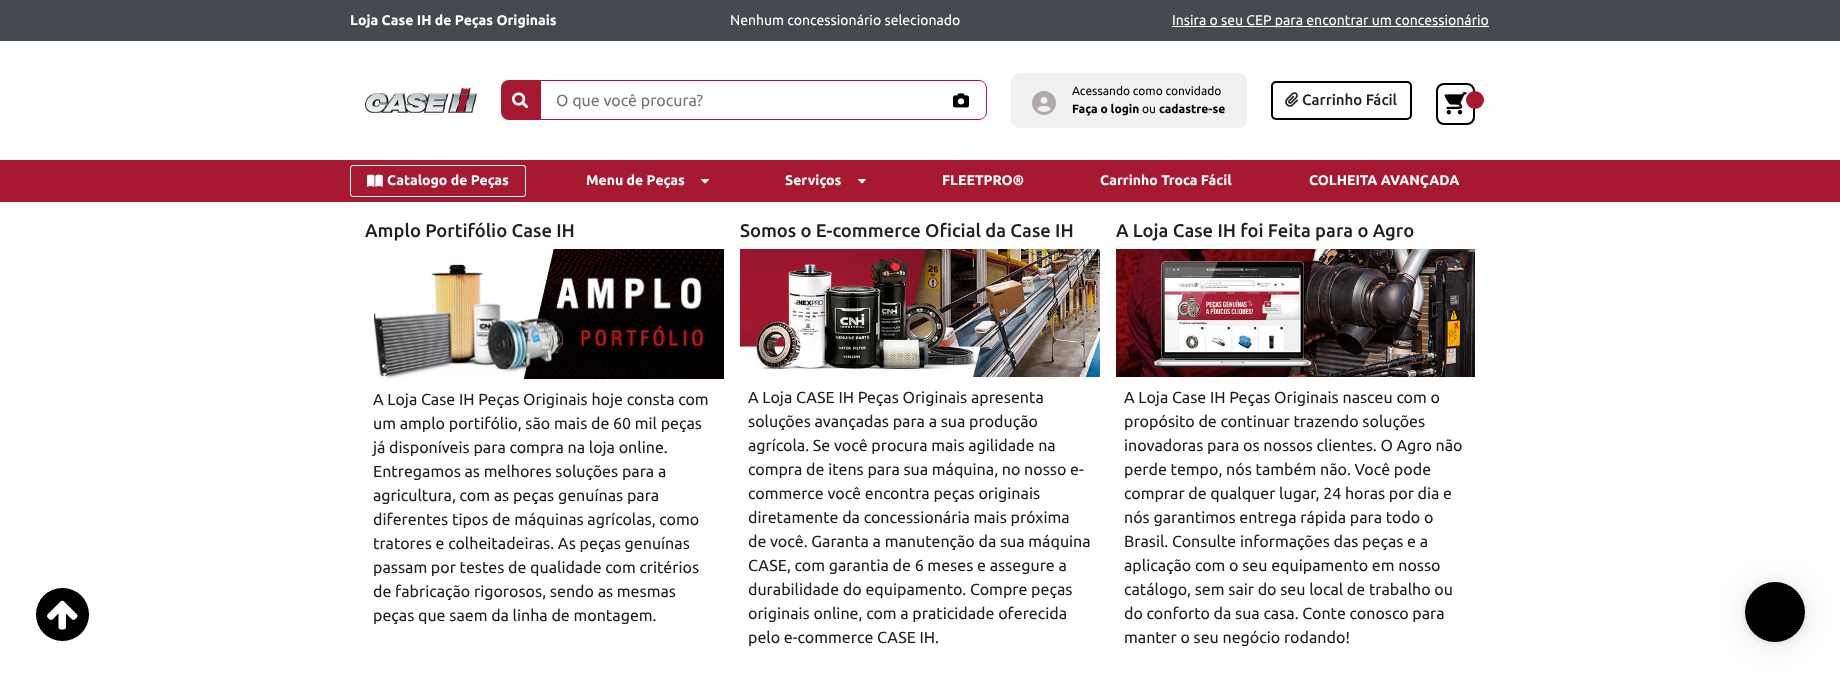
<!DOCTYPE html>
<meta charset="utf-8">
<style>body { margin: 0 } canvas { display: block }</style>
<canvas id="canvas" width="1840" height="677"></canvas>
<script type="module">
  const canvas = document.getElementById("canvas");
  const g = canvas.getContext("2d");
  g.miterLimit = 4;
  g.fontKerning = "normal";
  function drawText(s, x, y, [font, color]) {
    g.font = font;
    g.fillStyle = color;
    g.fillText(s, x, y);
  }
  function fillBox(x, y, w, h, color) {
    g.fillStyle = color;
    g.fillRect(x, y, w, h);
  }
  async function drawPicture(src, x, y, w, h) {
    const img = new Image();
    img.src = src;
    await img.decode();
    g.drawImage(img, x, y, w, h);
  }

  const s1 = ["bold 14px Ubuntu", "#FFFFFF"];
  const s2 = ["14px Ubuntu", "#FFFFFF"];
  const s3 = ["16px Ubuntu", "#757575"];
  const s4 = ["12px Ubuntu", "#000000"];
  const s5 = ["bold 12px Ubuntu", "#000000"];
  const s6 = ["500 15px Ubuntu", "#212121"];
  const s7 = ["500 18.4px Ubuntu", "#212121"];
  const s8 = ["16px Ubuntu", "#212121"];

  fillBox(0, 0, 1840, 677, "#FFFFFF");
  fillBox(0, 0, 1840, 41, "#474950");
  drawText("Loja Case IH de Peças Originais", 350, 25, s1);
  drawText("Nenhum concessionário selecionado", 730, 25, s2);
  fillBox(1172, 26, 317, 1, "#FFFFFF");
  drawText("Insira o seu CEP para encontrar um concessionário", 1172, 25, s2);
  await drawPicture("pic1.png", 365, 87, 112, 26);
  g.fillStyle = "#A71930";
  g.beginPath();
  g.roundRect(501, 80, 40, 40, [8, 0, 0, 8]);
  g.fill();
  await drawPicture("pic2.png", 512, 92, 16, 17);
  g.beginPath();
  g.moveTo(541, 80);
  g.lineTo(979, 80);
  g.bezierCurveTo(983, 80, 987, 84, 987, 88);
  g.lineTo(987, 112);
  g.bezierCurveTo(987, 116, 983, 120, 979, 120);
  g.lineTo(541, 120);
  g.closePath();
  g.moveTo(541, 81);
  g.lineTo(979, 81);
  g.bezierCurveTo(983, 81, 986, 84, 986, 88);
  g.lineTo(986, 112);
  g.bezierCurveTo(986, 116, 983, 119, 979, 119);
  g.lineTo(541, 119);
  g.closePath();
  g.fill("evenodd");
  drawText("O que você procura?", 556, 106, s3);
  await drawPicture("pic3.png", 953, 93, 16, 15);
  g.fillStyle = "#F1F1F1";
  g.beginPath();
  g.roundRect(1011.5, 73.5, 235, 54, 7.5);
  g.fill();
  g.strokeStyle = "#F1F1F1";
  g.stroke();
  await drawPicture("pic4.png", 1032, 91, 24, 24);
  drawText("Acessando como convidado", 1072, 95, s4);
  drawText("Faça o login", 1072, 113, s5);
  drawText("ou", 1142, 113, s4);
  drawText("cadastre-se", 1159, 113, s5);
  g.beginPath();
  g.roundRect(1272, 82, 139, 37, 4);
  g.strokeStyle = "#000000";
  g.lineWidth = 2;
  g.stroke();
  await drawPicture("pic5.png", 1285, 92, 13, 15);
  drawText("Carrinho Fácil", 1302, 105, s6);
  g.beginPath();
  g.roundRect(1437, 84, 37, 40, 7);
  g.stroke();
  g.fillStyle = "#A71930";
  g.beginPath();
  g.arc(1475, 100, 9, 0, Math.PI * 2);
  g.fill();
  await drawPicture("pic6.png", 1444, 92, 23, 23);
  fillBox(0, 160, 1840, 42, "#A71930");
  g.beginPath();
  g.roundRect(350.5, 165.5, 175, 31, 2.5);
  g.strokeStyle = "#FFFFFF";
  g.lineWidth = 1;
  g.stroke();
  await drawPicture("pic7.png", 367, 174, 16, 13);
  drawText("Catalogo de Peças", 387, 185, s1);
  drawText("Menu de Peças", 586, 185, s1);
  await drawPicture("pic8.png", 701, 179, 8, 5);
  drawText("Serviços", 785, 185, s1);
  await drawPicture("pic8.png", 858, 179, 8, 5);
  drawText("FLEETPRO®", 942, 185, s1);
  drawText("Carrinho Troca Fácil", 1100, 185, s1);
  drawText("COLHEITA AVANÇADA", 1309, 185, s1);
  g.fillStyle = "#000000";
  g.beginPath();
  g.arc(62.5, 614.5, 27, 0, Math.PI * 2);
  g.fill();
  g.stroke();
  await drawPicture("pic9.png", 47, 600, 31, 30);
  drawText("Amplo Portifólio Case IH", 365, 237, s7);
  await drawPicture("pic10.png", 373, 249, 351, 130);
  drawText("A Loja Case IH Peças Originais hoje consta com", 373, 405, s8);
  drawText("um amplo portifólio, são mais de 60 mil peças", 373, 429, s8);
  drawText("já disponíveis para compra na loja online.", 373, 453, s8);
  drawText("Entregamos as melhores soluções para a", 373, 477, s8);
  drawText("agricultura, com as peças genuínas para", 373, 501, s8);
  drawText("diferentes tipos de máquinas agrícolas, como", 373, 525, s8);
  drawText("tratores e colheitadeiras. As peças genuínas", 373, 549, s8);
  drawText("passam por testes de qualidade com critérios", 373, 573, s8);
  drawText("de fabricação rigorosos, sendo as mesmas", 373, 597, s8);
  drawText("peças que saem da linha de montagem.", 373, 621, s8);
  drawText("Somos o E-commerce Oficial da Case IH", 740, 237, s7);
  await drawPicture("pic11.png", 740, 249, 360, 128);
  drawText("A Loja CASE IH Peças Originais apresenta", 748, 403, s8);
  drawText("soluções avançadas para a sua produção", 748, 427, s8);
  drawText("agrícola. Se você procura mais agilidade na", 748, 451, s8);
  drawText("compra de itens para sua máquina, no nosso e-", 748, 475, s8);
  drawText("commerce você encontra peças originais", 748, 499, s8);
  drawText("diretamente da concessionária mais próxima", 748, 523, s8);
  drawText("de você. Garanta a manutenção da sua máquina", 748, 547, s8);
  drawText("CASE, com garantia de 6 meses e assegure a", 748, 571, s8);
  drawText("durabilidade do equipamento. Compre peças", 748, 595, s8);
  drawText("originais online, com a praticidade oferecida", 748, 619, s8);
  drawText("pelo e-commerce CASE IH.", 748, 643, s8);
  drawText("A Loja Case IH foi Feita para o Agro", 1116, 237, s7);
  await drawPicture("pic12.png", 1116, 249, 359, 128);
  drawText("A Loja Case IH Peças Originais nasceu com o", 1124, 403, s8);
  drawText("propósito de continuar trazendo soluções", 1124, 427, s8);
  drawText("inovadoras para os nossos clientes. O Agro não", 1124, 451, s8);
  drawText("perde tempo, nós também não. Você pode", 1124, 475, s8);
  drawText("comprar de qualquer lugar, 24 horas por dia e", 1124, 499, s8);
  drawText("nós garantimos entrega rápida para todo o", 1124, 523, s8);
  drawText("Brasil. Consulte informações das peças e a", 1124, 547, s8);
  drawText("aplicação com o seu equipamento em nosso", 1124, 571, s8);
  drawText("catálogo, sem sair do seu local de trabalho ou", 1124, 595, s8);
  drawText("do conforto da sua casa. Conte conosco para", 1124, 619, s8);
  drawText("manter o seu negócio rodando!", 1124, 643, s8);
  g.fillStyle = "rgba(0, 0, 0, 0.1)";
  g.filter = "blur(16px)";
  g.beginPath();
  g.roundRect(1745, 584, 60, 60, 30);
  g.fill();
  g.filter = "none";
  g.filter = "blur(3px)";
  g.beginPath();
  g.roundRect(1745, 583, 60, 60, 30);
  g.fill();
  g.filter = "none";
  g.fillStyle = "#000000";
  g.beginPath();
  g.arc(1775, 612, 30, 0, Math.PI * 2);
  g.fill();
</script>
